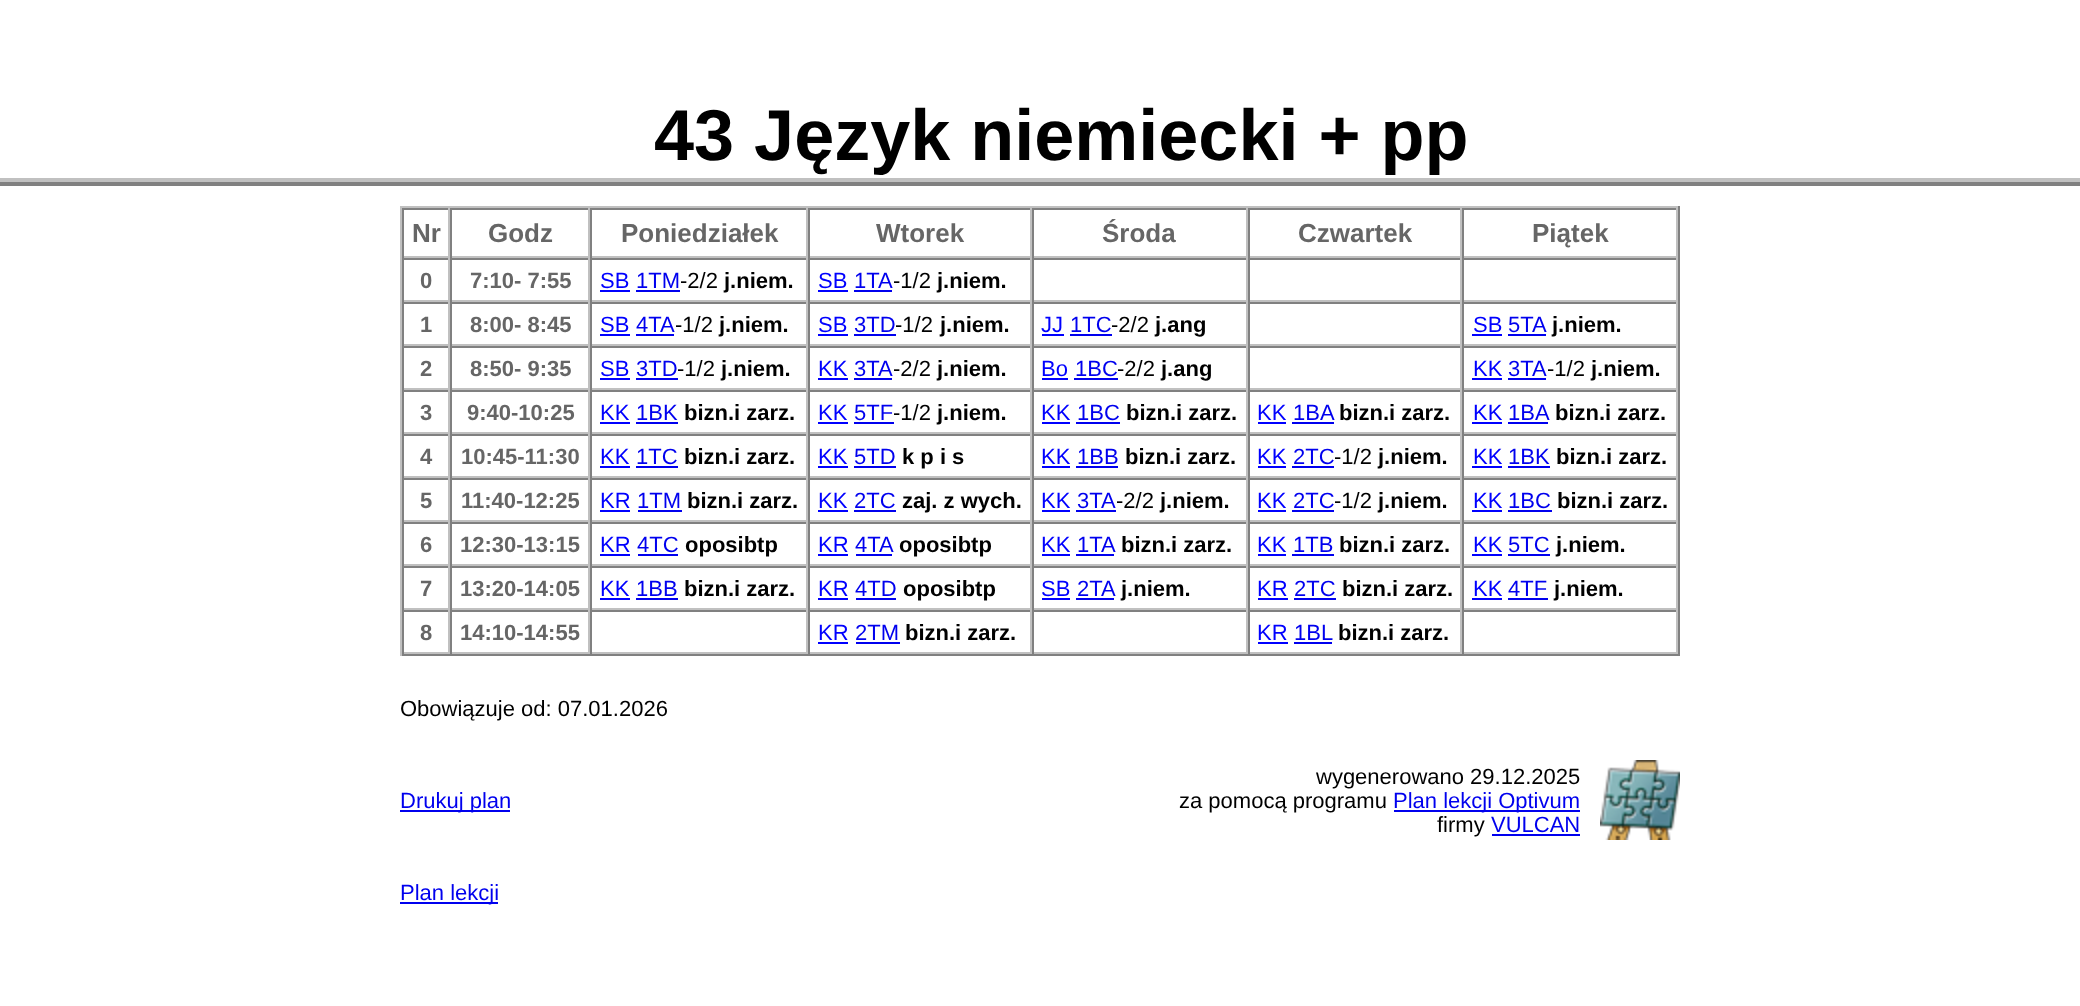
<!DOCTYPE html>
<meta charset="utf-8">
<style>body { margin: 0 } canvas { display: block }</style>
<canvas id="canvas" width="2080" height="1006"></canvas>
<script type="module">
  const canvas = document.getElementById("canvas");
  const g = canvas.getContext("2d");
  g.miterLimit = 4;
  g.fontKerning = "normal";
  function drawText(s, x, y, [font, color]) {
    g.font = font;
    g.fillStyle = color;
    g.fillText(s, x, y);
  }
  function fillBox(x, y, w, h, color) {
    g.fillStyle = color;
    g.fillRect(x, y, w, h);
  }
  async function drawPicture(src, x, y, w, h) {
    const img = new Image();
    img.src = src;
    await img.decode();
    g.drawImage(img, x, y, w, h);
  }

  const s1 = ["bold 72px Liberation Sans", "#000000"];
  const s2 = ["bold 26px Liberation Sans", "#666666"];
  const s3 = ["bold 22px Liberation Sans", "#666666"];
  const s4 = ["22px Liberation Sans", "#0000FF"];
  const s5 = ["22px Liberation Sans", "#0000EE"];
  const s6 = ["22px Liberation Sans", "#000000"];
  const s7 = ["bold 22px Liberation Sans", "#000000"];

  fillBox(0, 0, 2080, 1006, "#FFFFFF");
  fillBox(0, 182, 2080, 4, "#808080");
  fillBox(0, 178, 2080, 4, "#C0C0C0");
  drawText("43 Język niemiecki + pp", 654, 160, s1);
  fillBox(400, 206, 1280, 2, "#C0C0C0");
  fillBox(1678, 206, 2, 450, "#808080");
  fillBox(400, 654, 1280, 2, "#808080");
  fillBox(400, 206, 2, 450, "#C0C0C0");
  fillBox(402, 208, 1276, 2, "#808080");
  fillBox(448, 208, 2, 50, "#C0C0C0");
  fillBox(402, 256, 48, 2, "#C0C0C0");
  fillBox(402, 208, 2, 50, "#808080");
  drawText("Nr", 412, 242, s2);
  fillBox(588, 208, 2, 50, "#C0C0C0");
  fillBox(450, 256, 140, 2, "#C0C0C0");
  fillBox(450, 208, 2, 50, "#808080");
  drawText("Godz", 488, 242, s2);
  fillBox(806, 208, 2, 50, "#C0C0C0");
  fillBox(590, 256, 218, 2, "#C0C0C0");
  fillBox(590, 208, 2, 50, "#808080");
  drawText("Poniedziałek", 621, 242, s2);
  fillBox(1030, 208, 2, 50, "#C0C0C0");
  fillBox(808, 256, 224, 2, "#C0C0C0");
  fillBox(808, 208, 2, 50, "#808080");
  drawText("Wtorek", 876, 242, s2);
  fillBox(1246, 208, 2, 50, "#C0C0C0");
  fillBox(1032, 256, 216, 2, "#C0C0C0");
  fillBox(1032, 208, 2, 50, "#808080");
  drawText("Środa", 1102, 242, s2);
  fillBox(1460, 208, 2, 50, "#C0C0C0");
  fillBox(1248, 256, 214, 2, "#C0C0C0");
  fillBox(1248, 208, 2, 50, "#808080");
  drawText("Czwartek", 1298, 242, s2);
  fillBox(1676, 208, 2, 50, "#C0C0C0");
  fillBox(1462, 256, 216, 2, "#C0C0C0");
  fillBox(1462, 208, 2, 50, "#808080");
  drawText("Piątek", 1532, 242, s2);
  fillBox(402, 258, 1276, 2, "#808080");
  fillBox(448, 258, 2, 44, "#C0C0C0");
  fillBox(402, 300, 48, 2, "#C0C0C0");
  fillBox(402, 258, 2, 44, "#808080");
  drawText("0", 420, 288, s3);
  fillBox(588, 258, 2, 44, "#C0C0C0");
  fillBox(450, 300, 140, 2, "#C0C0C0");
  fillBox(450, 258, 2, 44, "#808080");
  drawText("7:10- 7:55", 470, 288, s3);
  fillBox(806, 258, 2, 44, "#C0C0C0");
  fillBox(590, 300, 218, 2, "#C0C0C0");
  fillBox(590, 258, 2, 44, "#808080");
  drawText("SB", 600, 288, s4);
  fillBox(600, 290, 30, 2, "#0000FF");
  drawText("1TM", 636, 288, s5);
  fillBox(636, 290, 44, 2, "#0000EE");
  drawText("-2/2", 680, 288, s6);
  drawText("j.niem.", 724, 288, s7);
  fillBox(1030, 258, 2, 44, "#C0C0C0");
  fillBox(808, 300, 224, 2, "#C0C0C0");
  fillBox(808, 258, 2, 44, "#808080");
  drawText("SB", 818, 288, s4);
  fillBox(818, 290, 30, 2, "#0000FF");
  drawText("1TA", 854, 288, s5);
  fillBox(854, 290, 38, 2, "#0000EE");
  drawText("-1/2", 893, 288, s6);
  drawText("j.niem.", 937, 288, s7);
  fillBox(1246, 258, 2, 44, "#C0C0C0");
  fillBox(1032, 300, 216, 2, "#C0C0C0");
  fillBox(1032, 258, 2, 44, "#808080");
  fillBox(1460, 258, 2, 44, "#C0C0C0");
  fillBox(1248, 300, 214, 2, "#C0C0C0");
  fillBox(1248, 258, 2, 44, "#808080");
  fillBox(1676, 258, 2, 44, "#C0C0C0");
  fillBox(1462, 300, 216, 2, "#C0C0C0");
  fillBox(1462, 258, 2, 44, "#808080");
  fillBox(402, 302, 1276, 2, "#808080");
  fillBox(448, 302, 2, 44, "#C0C0C0");
  fillBox(402, 344, 48, 2, "#C0C0C0");
  fillBox(402, 302, 2, 44, "#808080");
  drawText("1", 420, 332, s3);
  fillBox(588, 302, 2, 44, "#C0C0C0");
  fillBox(450, 344, 140, 2, "#C0C0C0");
  fillBox(450, 302, 2, 44, "#808080");
  drawText("8:00- 8:45", 470, 332, s3);
  fillBox(806, 302, 2, 44, "#C0C0C0");
  fillBox(590, 344, 218, 2, "#C0C0C0");
  fillBox(590, 302, 2, 44, "#808080");
  drawText("SB", 600, 332, s4);
  fillBox(600, 334, 30, 2, "#0000FF");
  drawText("4TA", 636, 332, s5);
  fillBox(636, 334, 38, 2, "#0000EE");
  drawText("-1/2", 675, 332, s6);
  drawText("j.niem.", 719, 332, s7);
  fillBox(1030, 302, 2, 44, "#C0C0C0");
  fillBox(808, 344, 224, 2, "#C0C0C0");
  fillBox(808, 302, 2, 44, "#808080");
  drawText("SB", 818, 332, s4);
  fillBox(818, 334, 30, 2, "#0000FF");
  drawText("3TD", 854, 332, s5);
  fillBox(854, 334, 42, 2, "#0000EE");
  drawText("-1/2", 895, 332, s6);
  drawText("j.niem.", 940, 332, s7);
  fillBox(1246, 302, 2, 44, "#C0C0C0");
  fillBox(1032, 344, 216, 2, "#C0C0C0");
  fillBox(1032, 302, 2, 44, "#808080");
  drawText("JJ", 1041, 332, s4);
  fillBox(1042, 334, 22, 2, "#0000FF");
  drawText("1TC", 1070, 332, s5);
  fillBox(1070, 334, 42, 2, "#0000EE");
  drawText("-2/2", 1111, 332, s6);
  drawText("j.ang", 1155, 332, s7);
  fillBox(1460, 302, 2, 44, "#C0C0C0");
  fillBox(1248, 344, 214, 2, "#C0C0C0");
  fillBox(1248, 302, 2, 44, "#808080");
  fillBox(1676, 302, 2, 44, "#C0C0C0");
  fillBox(1462, 344, 216, 2, "#C0C0C0");
  fillBox(1462, 302, 2, 44, "#808080");
  drawText("SB", 1473, 332, s4);
  fillBox(1472, 334, 30, 2, "#0000FF");
  drawText("5TA", 1508, 332, s5);
  fillBox(1508, 334, 38, 2, "#0000EE");
  drawText("j.niem.", 1552, 332, s7);
  fillBox(402, 346, 1276, 2, "#808080");
  fillBox(448, 346, 2, 44, "#C0C0C0");
  fillBox(402, 388, 48, 2, "#C0C0C0");
  fillBox(402, 346, 2, 44, "#808080");
  drawText("2", 420, 376, s3);
  fillBox(588, 346, 2, 44, "#C0C0C0");
  fillBox(450, 388, 140, 2, "#C0C0C0");
  fillBox(450, 346, 2, 44, "#808080");
  drawText("8:50- 9:35", 470, 376, s3);
  fillBox(806, 346, 2, 44, "#C0C0C0");
  fillBox(590, 388, 218, 2, "#C0C0C0");
  fillBox(590, 346, 2, 44, "#808080");
  drawText("SB", 600, 376, s4);
  fillBox(600, 378, 30, 2, "#0000FF");
  drawText("3TD", 636, 376, s5);
  fillBox(636, 378, 42, 2, "#0000EE");
  drawText("-1/2", 677, 376, s6);
  drawText("j.niem.", 721, 376, s7);
  fillBox(1030, 346, 2, 44, "#C0C0C0");
  fillBox(808, 388, 224, 2, "#C0C0C0");
  fillBox(808, 346, 2, 44, "#808080");
  drawText("KK", 818, 376, s4);
  fillBox(818, 378, 30, 2, "#0000FF");
  drawText("3TA", 854, 376, s5);
  fillBox(854, 378, 38, 2, "#0000EE");
  drawText("-2/2", 893, 376, s6);
  drawText("j.niem.", 937, 376, s7);
  fillBox(1246, 346, 2, 44, "#C0C0C0");
  fillBox(1032, 388, 216, 2, "#C0C0C0");
  fillBox(1032, 346, 2, 44, "#808080");
  drawText("Bo", 1041, 376, s4);
  fillBox(1042, 378, 26, 2, "#0000FF");
  drawText("1BC", 1075, 376, s5);
  fillBox(1074, 378, 44, 2, "#0000EE");
  drawText("-2/2", 1117, 376, s6);
  drawText("j.ang", 1161, 376, s7);
  fillBox(1460, 346, 2, 44, "#C0C0C0");
  fillBox(1248, 388, 214, 2, "#C0C0C0");
  fillBox(1248, 346, 2, 44, "#808080");
  fillBox(1676, 346, 2, 44, "#C0C0C0");
  fillBox(1462, 388, 216, 2, "#C0C0C0");
  fillBox(1462, 346, 2, 44, "#808080");
  drawText("KK", 1473, 376, s4);
  fillBox(1472, 378, 30, 2, "#0000FF");
  drawText("3TA", 1508, 376, s5);
  fillBox(1508, 378, 38, 2, "#0000EE");
  drawText("-1/2", 1547, 376, s6);
  drawText("j.niem.", 1591, 376, s7);
  fillBox(402, 390, 1276, 2, "#808080");
  fillBox(448, 390, 2, 44, "#C0C0C0");
  fillBox(402, 432, 48, 2, "#C0C0C0");
  fillBox(402, 390, 2, 44, "#808080");
  drawText("3", 420, 420, s3);
  fillBox(588, 390, 2, 44, "#C0C0C0");
  fillBox(450, 432, 140, 2, "#C0C0C0");
  fillBox(450, 390, 2, 44, "#808080");
  drawText("9:40-10:25", 467, 420, s3);
  fillBox(806, 390, 2, 44, "#C0C0C0");
  fillBox(590, 432, 218, 2, "#C0C0C0");
  fillBox(590, 390, 2, 44, "#808080");
  drawText("KK", 600, 420, s4);
  fillBox(600, 422, 30, 2, "#0000FF");
  drawText("1BK", 636, 420, s5);
  fillBox(636, 422, 42, 2, "#0000EE");
  drawText("bizn.i zarz.", 684, 420, s7);
  fillBox(1030, 390, 2, 44, "#C0C0C0");
  fillBox(808, 432, 224, 2, "#C0C0C0");
  fillBox(808, 390, 2, 44, "#808080");
  drawText("KK", 818, 420, s4);
  fillBox(818, 422, 30, 2, "#0000FF");
  drawText("5TF", 854, 420, s5);
  fillBox(854, 422, 40, 2, "#0000EE");
  drawText("-1/2", 893, 420, s6);
  drawText("j.niem.", 937, 420, s7);
  fillBox(1246, 390, 2, 44, "#C0C0C0");
  fillBox(1032, 432, 216, 2, "#C0C0C0");
  fillBox(1032, 390, 2, 44, "#808080");
  drawText("KK", 1041, 420, s4);
  fillBox(1042, 422, 28, 2, "#0000FF");
  drawText("1BC", 1077, 420, s5);
  fillBox(1076, 422, 44, 2, "#0000EE");
  drawText("bizn.i zarz.", 1126, 420, s7);
  fillBox(1460, 390, 2, 44, "#C0C0C0");
  fillBox(1248, 432, 214, 2, "#C0C0C0");
  fillBox(1248, 390, 2, 44, "#808080");
  drawText("KK", 1257, 420, s4);
  fillBox(1258, 422, 28, 2, "#0000FF");
  drawText("1BA", 1293, 420, s5);
  fillBox(1292, 422, 42, 2, "#0000EE");
  drawText("bizn.i zarz.", 1339, 420, s7);
  fillBox(1676, 390, 2, 44, "#C0C0C0");
  fillBox(1462, 432, 216, 2, "#C0C0C0");
  fillBox(1462, 390, 2, 44, "#808080");
  drawText("KK", 1473, 420, s4);
  fillBox(1472, 422, 30, 2, "#0000FF");
  drawText("1BA", 1508, 420, s5);
  fillBox(1508, 422, 40, 2, "#0000EE");
  drawText("bizn.i zarz.", 1555, 420, s7);
  fillBox(402, 434, 1276, 2, "#808080");
  fillBox(448, 434, 2, 44, "#C0C0C0");
  fillBox(402, 476, 48, 2, "#C0C0C0");
  fillBox(402, 434, 2, 44, "#808080");
  drawText("4", 420, 464, s3);
  fillBox(588, 434, 2, 44, "#C0C0C0");
  fillBox(450, 476, 140, 2, "#C0C0C0");
  fillBox(450, 434, 2, 44, "#808080");
  drawText("10:45-11:30", 461, 464, s3);
  fillBox(806, 434, 2, 44, "#C0C0C0");
  fillBox(590, 476, 218, 2, "#C0C0C0");
  fillBox(590, 434, 2, 44, "#808080");
  drawText("KK", 600, 464, s4);
  fillBox(600, 466, 30, 2, "#0000FF");
  drawText("1TC", 636, 464, s5);
  fillBox(636, 466, 42, 2, "#0000EE");
  drawText("bizn.i zarz.", 684, 464, s7);
  fillBox(1030, 434, 2, 44, "#C0C0C0");
  fillBox(808, 476, 224, 2, "#C0C0C0");
  fillBox(808, 434, 2, 44, "#808080");
  drawText("KK", 818, 464, s4);
  fillBox(818, 466, 30, 2, "#0000FF");
  drawText("5TD", 854, 464, s5);
  fillBox(854, 466, 42, 2, "#0000EE");
  drawText("k p i s", 902, 464, s7);
  fillBox(1246, 434, 2, 44, "#C0C0C0");
  fillBox(1032, 476, 216, 2, "#C0C0C0");
  fillBox(1032, 434, 2, 44, "#808080");
  drawText("KK", 1041, 464, s4);
  fillBox(1042, 466, 28, 2, "#0000FF");
  drawText("1BB", 1077, 464, s5);
  fillBox(1076, 466, 42, 2, "#0000EE");
  drawText("bizn.i zarz.", 1125, 464, s7);
  fillBox(1460, 434, 2, 44, "#C0C0C0");
  fillBox(1248, 476, 214, 2, "#C0C0C0");
  fillBox(1248, 434, 2, 44, "#808080");
  drawText("KK", 1257, 464, s4);
  fillBox(1258, 466, 28, 2, "#0000FF");
  drawText("2TC", 1293, 464, s5);
  fillBox(1292, 466, 42, 2, "#0000EE");
  drawText("-1/2", 1334, 464, s6);
  drawText("j.niem.", 1378, 464, s7);
  fillBox(1676, 434, 2, 44, "#C0C0C0");
  fillBox(1462, 476, 216, 2, "#C0C0C0");
  fillBox(1462, 434, 2, 44, "#808080");
  drawText("KK", 1473, 464, s4);
  fillBox(1472, 466, 30, 2, "#0000FF");
  drawText("1BK", 1508, 464, s5);
  fillBox(1508, 466, 42, 2, "#0000EE");
  drawText("bizn.i zarz.", 1556, 464, s7);
  fillBox(402, 478, 1276, 2, "#808080");
  fillBox(448, 478, 2, 44, "#C0C0C0");
  fillBox(402, 520, 48, 2, "#C0C0C0");
  fillBox(402, 478, 2, 44, "#808080");
  drawText("5", 420, 508, s3);
  fillBox(588, 478, 2, 44, "#C0C0C0");
  fillBox(450, 520, 140, 2, "#C0C0C0");
  fillBox(450, 478, 2, 44, "#808080");
  drawText("11:40-12:25", 461, 508, s3);
  fillBox(806, 478, 2, 44, "#C0C0C0");
  fillBox(590, 520, 218, 2, "#C0C0C0");
  fillBox(590, 478, 2, 44, "#808080");
  drawText("KR", 600, 508, s4);
  fillBox(600, 510, 30, 2, "#0000FF");
  drawText("1TM", 637, 508, s5);
  fillBox(638, 510, 44, 2, "#0000EE");
  drawText("bizn.i zarz.", 687, 508, s7);
  fillBox(1030, 478, 2, 44, "#C0C0C0");
  fillBox(808, 520, 224, 2, "#C0C0C0");
  fillBox(808, 478, 2, 44, "#808080");
  drawText("KK", 818, 508, s4);
  fillBox(818, 510, 30, 2, "#0000FF");
  drawText("2TC", 854, 508, s5);
  fillBox(854, 510, 42, 2, "#0000EE");
  drawText("zaj. z wych.", 902, 508, s7);
  fillBox(1246, 478, 2, 44, "#C0C0C0");
  fillBox(1032, 520, 216, 2, "#C0C0C0");
  fillBox(1032, 478, 2, 44, "#808080");
  drawText("KK", 1041, 508, s4);
  fillBox(1042, 510, 28, 2, "#0000FF");
  drawText("3TA", 1077, 508, s5);
  fillBox(1076, 510, 40, 2, "#0000EE");
  drawText("-2/2", 1116, 508, s6);
  drawText("j.niem.", 1160, 508, s7);
  fillBox(1460, 478, 2, 44, "#C0C0C0");
  fillBox(1248, 520, 214, 2, "#C0C0C0");
  fillBox(1248, 478, 2, 44, "#808080");
  drawText("KK", 1257, 508, s4);
  fillBox(1258, 510, 28, 2, "#0000FF");
  drawText("2TC", 1293, 508, s5);
  fillBox(1292, 510, 42, 2, "#0000EE");
  drawText("-1/2", 1334, 508, s6);
  drawText("j.niem.", 1378, 508, s7);
  fillBox(1676, 478, 2, 44, "#C0C0C0");
  fillBox(1462, 520, 216, 2, "#C0C0C0");
  fillBox(1462, 478, 2, 44, "#808080");
  drawText("KK", 1473, 508, s4);
  fillBox(1472, 510, 30, 2, "#0000FF");
  drawText("1BC", 1508, 508, s5);
  fillBox(1508, 510, 44, 2, "#0000EE");
  drawText("bizn.i zarz.", 1557, 508, s7);
  fillBox(402, 522, 1276, 2, "#808080");
  fillBox(448, 522, 2, 44, "#C0C0C0");
  fillBox(402, 564, 48, 2, "#C0C0C0");
  fillBox(402, 522, 2, 44, "#808080");
  drawText("6", 420, 552, s3);
  fillBox(588, 522, 2, 44, "#C0C0C0");
  fillBox(450, 564, 140, 2, "#C0C0C0");
  fillBox(450, 522, 2, 44, "#808080");
  drawText("12:30-13:15", 460, 552, s3);
  fillBox(806, 522, 2, 44, "#C0C0C0");
  fillBox(590, 564, 218, 2, "#C0C0C0");
  fillBox(590, 522, 2, 44, "#808080");
  drawText("KR", 600, 552, s4);
  fillBox(600, 554, 30, 2, "#0000FF");
  drawText("4TC", 637, 552, s5);
  fillBox(638, 554, 40, 2, "#0000EE");
  drawText("oposibtp", 685, 552, s7);
  fillBox(1030, 522, 2, 44, "#C0C0C0");
  fillBox(808, 564, 224, 2, "#C0C0C0");
  fillBox(808, 522, 2, 44, "#808080");
  drawText("KR", 818, 552, s4);
  fillBox(818, 554, 30, 2, "#0000FF");
  drawText("4TA", 855, 552, s5);
  fillBox(856, 554, 36, 2, "#0000EE");
  drawText("oposibtp", 899, 552, s7);
  fillBox(1246, 522, 2, 44, "#C0C0C0");
  fillBox(1032, 564, 216, 2, "#C0C0C0");
  fillBox(1032, 522, 2, 44, "#808080");
  drawText("KK", 1041, 552, s4);
  fillBox(1042, 554, 28, 2, "#0000FF");
  drawText("1TA", 1077, 552, s5);
  fillBox(1076, 554, 38, 2, "#0000EE");
  drawText("bizn.i zarz.", 1121, 552, s7);
  fillBox(1460, 522, 2, 44, "#C0C0C0");
  fillBox(1248, 564, 214, 2, "#C0C0C0");
  fillBox(1248, 522, 2, 44, "#808080");
  drawText("KK", 1257, 552, s4);
  fillBox(1258, 554, 28, 2, "#0000FF");
  drawText("1TB", 1293, 552, s5);
  fillBox(1292, 554, 42, 2, "#0000EE");
  drawText("bizn.i zarz.", 1339, 552, s7);
  fillBox(1676, 522, 2, 44, "#C0C0C0");
  fillBox(1462, 564, 216, 2, "#C0C0C0");
  fillBox(1462, 522, 2, 44, "#808080");
  drawText("KK", 1473, 552, s4);
  fillBox(1472, 554, 30, 2, "#0000FF");
  drawText("5TC", 1508, 552, s5);
  fillBox(1508, 554, 42, 2, "#0000EE");
  drawText("j.niem.", 1556, 552, s7);
  fillBox(402, 566, 1276, 2, "#808080");
  fillBox(448, 566, 2, 44, "#C0C0C0");
  fillBox(402, 608, 48, 2, "#C0C0C0");
  fillBox(402, 566, 2, 44, "#808080");
  drawText("7", 420, 596, s3);
  fillBox(588, 566, 2, 44, "#C0C0C0");
  fillBox(450, 608, 140, 2, "#C0C0C0");
  fillBox(450, 566, 2, 44, "#808080");
  drawText("13:20-14:05", 460, 596, s3);
  fillBox(806, 566, 2, 44, "#C0C0C0");
  fillBox(590, 608, 218, 2, "#C0C0C0");
  fillBox(590, 566, 2, 44, "#808080");
  drawText("KK", 600, 596, s4);
  fillBox(600, 598, 30, 2, "#0000FF");
  drawText("1BB", 636, 596, s5);
  fillBox(636, 598, 42, 2, "#0000EE");
  drawText("bizn.i zarz.", 684, 596, s7);
  fillBox(1030, 566, 2, 44, "#C0C0C0");
  fillBox(808, 608, 224, 2, "#C0C0C0");
  fillBox(808, 566, 2, 44, "#808080");
  drawText("KR", 818, 596, s4);
  fillBox(818, 598, 30, 2, "#0000FF");
  drawText("4TD", 855, 596, s5);
  fillBox(856, 598, 40, 2, "#0000EE");
  drawText("oposibtp", 903, 596, s7);
  fillBox(1246, 566, 2, 44, "#C0C0C0");
  fillBox(1032, 608, 216, 2, "#C0C0C0");
  fillBox(1032, 566, 2, 44, "#808080");
  drawText("SB", 1041, 596, s4);
  fillBox(1042, 598, 28, 2, "#0000FF");
  drawText("2TA", 1077, 596, s5);
  fillBox(1076, 598, 38, 2, "#0000EE");
  drawText("j.niem.", 1121, 596, s7);
  fillBox(1460, 566, 2, 44, "#C0C0C0");
  fillBox(1248, 608, 214, 2, "#C0C0C0");
  fillBox(1248, 566, 2, 44, "#808080");
  drawText("KR", 1257, 596, s4);
  fillBox(1258, 598, 30, 2, "#0000FF");
  drawText("2TC", 1294, 596, s5);
  fillBox(1294, 598, 42, 2, "#0000EE");
  drawText("bizn.i zarz.", 1342, 596, s7);
  fillBox(1676, 566, 2, 44, "#C0C0C0");
  fillBox(1462, 608, 216, 2, "#C0C0C0");
  fillBox(1462, 566, 2, 44, "#808080");
  drawText("KK", 1473, 596, s4);
  fillBox(1472, 598, 30, 2, "#0000FF");
  drawText("4TF", 1508, 596, s5);
  fillBox(1508, 598, 40, 2, "#0000EE");
  drawText("j.niem.", 1554, 596, s7);
  fillBox(402, 610, 1276, 2, "#808080");
  fillBox(448, 610, 2, 44, "#C0C0C0");
  fillBox(402, 652, 48, 2, "#C0C0C0");
  fillBox(402, 610, 2, 44, "#808080");
  drawText("8", 420, 640, s3);
  fillBox(588, 610, 2, 44, "#C0C0C0");
  fillBox(450, 652, 140, 2, "#C0C0C0");
  fillBox(450, 610, 2, 44, "#808080");
  drawText("14:10-14:55", 460, 640, s3);
  fillBox(806, 610, 2, 44, "#C0C0C0");
  fillBox(590, 652, 218, 2, "#C0C0C0");
  fillBox(590, 610, 2, 44, "#808080");
  fillBox(1030, 610, 2, 44, "#C0C0C0");
  fillBox(808, 652, 224, 2, "#C0C0C0");
  fillBox(808, 610, 2, 44, "#808080");
  drawText("KR", 818, 640, s4);
  fillBox(818, 642, 30, 2, "#0000FF");
  drawText("2TM", 855, 640, s5);
  fillBox(856, 642, 44, 2, "#0000EE");
  drawText("bizn.i zarz.", 905, 640, s7);
  fillBox(1246, 610, 2, 44, "#C0C0C0");
  fillBox(1032, 652, 216, 2, "#C0C0C0");
  fillBox(1032, 610, 2, 44, "#808080");
  fillBox(1460, 610, 2, 44, "#C0C0C0");
  fillBox(1248, 652, 214, 2, "#C0C0C0");
  fillBox(1248, 610, 2, 44, "#808080");
  drawText("KR", 1257, 640, s4);
  fillBox(1258, 642, 30, 2, "#0000FF");
  drawText("1BL", 1294, 640, s5);
  fillBox(1294, 642, 38, 2, "#0000EE");
  drawText("bizn.i zarz.", 1338, 640, s7);
  fillBox(1676, 610, 2, 44, "#C0C0C0");
  fillBox(1462, 652, 216, 2, "#C0C0C0");
  fillBox(1462, 610, 2, 44, "#808080");
  drawText("Obowiązuje od: 07.01.2026", 400, 716, s6);
  fillBox(400, 810, 110, 2, "#0000EE");
  drawText("Drukuj plan", 400, 808, s5);
  drawText("wygenerowano 29.12.2025", 1316, 784, s6);
  drawText("za pomocą programu", 1179, 808, s6);
  fillBox(1394, 810, 186, 2, "#0000EE");
  drawText("Plan lekcji Optivum", 1393, 808, s5);
  drawText("firmy", 1437, 832, s6);
  drawText("VULCAN", 1491, 832, s5);
  fillBox(1492, 834, 88, 2, "#0000EE");
  await drawPicture("pic1.png", 1600, 760, 80, 80);
  fillBox(400, 902, 98, 2, "#0000EE");
  drawText("Plan lekcji", 400, 900, s5);
</script>
